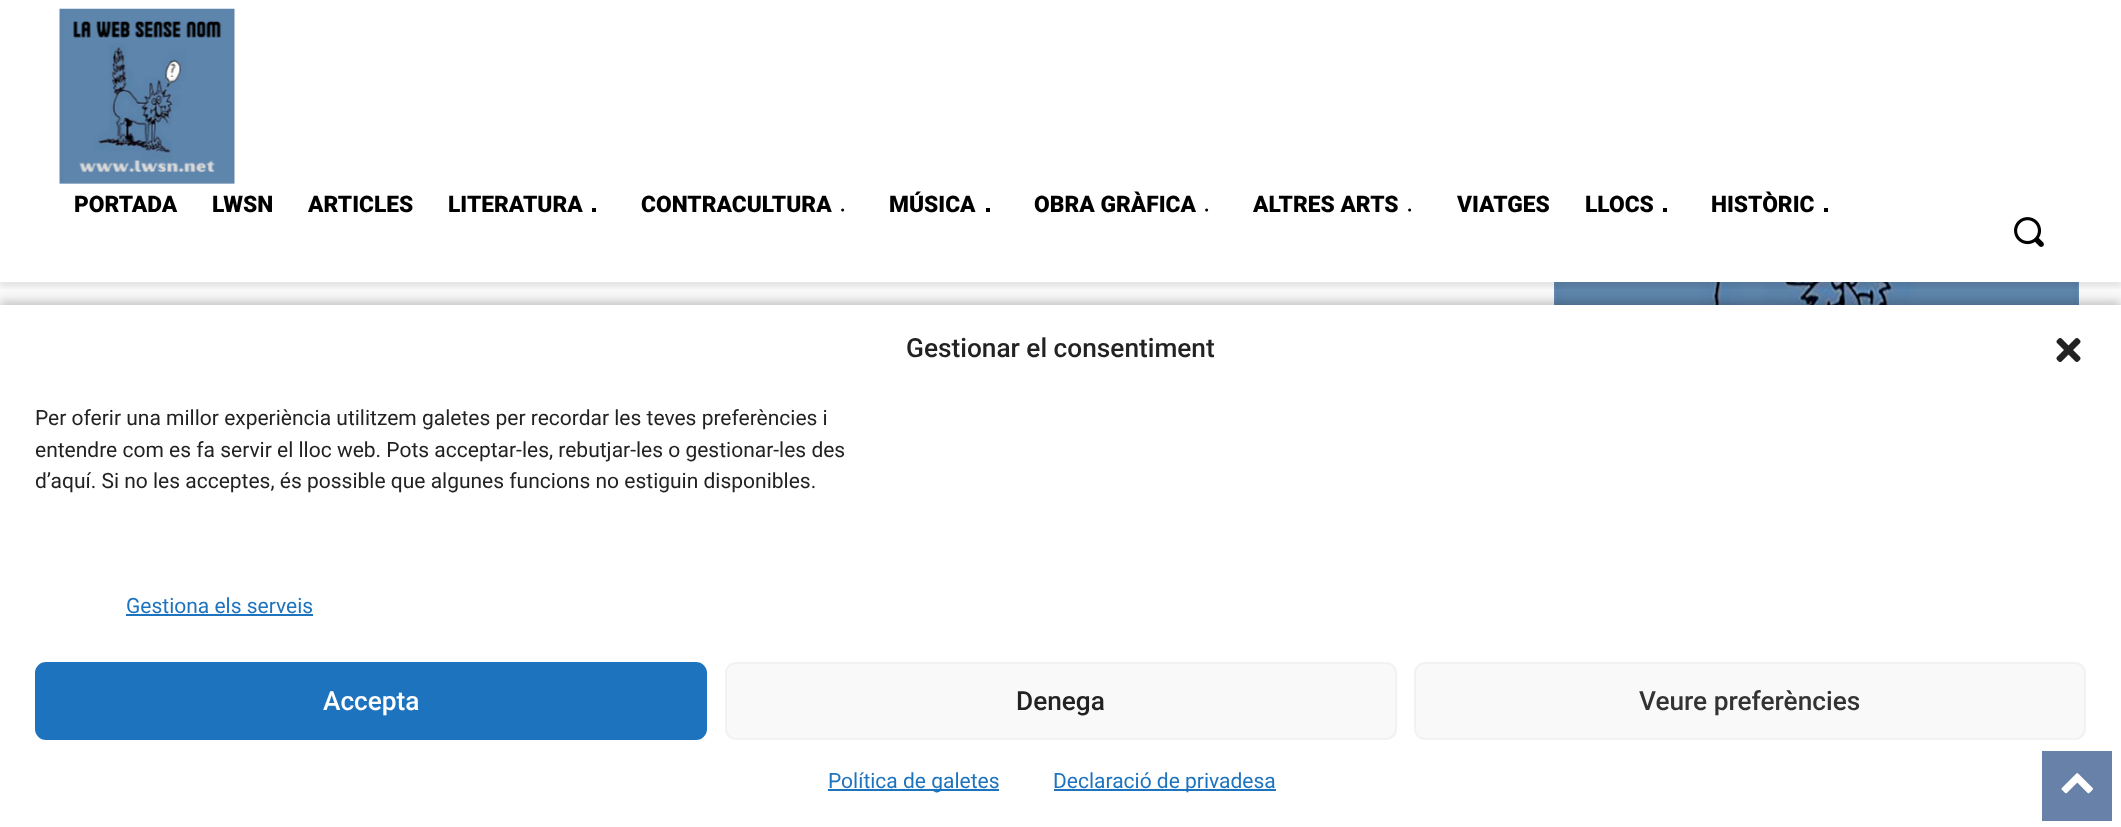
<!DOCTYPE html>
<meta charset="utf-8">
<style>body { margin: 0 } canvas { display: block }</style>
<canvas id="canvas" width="2121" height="827"></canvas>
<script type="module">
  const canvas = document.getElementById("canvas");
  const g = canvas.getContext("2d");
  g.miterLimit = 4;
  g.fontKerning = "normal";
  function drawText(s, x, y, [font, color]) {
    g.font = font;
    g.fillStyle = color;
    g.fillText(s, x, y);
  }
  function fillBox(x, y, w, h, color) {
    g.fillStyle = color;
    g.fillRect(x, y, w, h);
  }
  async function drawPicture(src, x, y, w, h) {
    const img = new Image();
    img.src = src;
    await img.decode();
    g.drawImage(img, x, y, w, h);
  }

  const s1 = ["900 22.75px Roboto", "#000000"];
  const s2 = ["500 26.25px Roboto", "#222222"];
  const s3 = ["21px Roboto", "#222222"];
  const s4 = ["21px Roboto", "#1E73BE"];
  const s5 = ["500 26.25px Roboto", "#FFFFFF"];
  const s6 = ["500 26.25px Roboto", "#333333"];

  fillBox(0, 0, 2121, 827, "#F9F9F9");
  fillBox(0, 0, 2121, 282, "#FFFFFF");
  await drawPicture("pic4.png", 1554, 282, 525, 23);
  g.save();
  g.beginPath();
  g.rect(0, 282, 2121, 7);
  g.clip();
  g.fillStyle = "rgba(0, 0, 0, 0.08)";
  g.filter = "blur(2.5px)";
  g.beginPath();
  g.rect(0, 5, 2121, 282);
  g.fill();
  g.filter = "none";
  g.restore();
  await drawPicture("pic1.png", 59, 8, 176, 176);
  drawText("PORTADA", 74, 212, s1);
  drawText("LWSN", 212, 212, s1);
  drawText("ARTICLES", 308, 212, s1);
  drawText("LITERATURA", 448, 212, s1);
  fillBox(592, 208, 4, 4, "#000000");
  drawText("CONTRACULTURA", 641, 212, s1);
  await drawPicture("pic2.png", 841, 208, 4, 4);
  drawText("MÚSICA", 889, 212, s1);
  fillBox(986, 208, 4, 4, "#000000");
  drawText("OBRA GRÀFICA", 1034, 212, s1);
  await drawPicture("pic2.png", 1205, 208, 4, 4);
  drawText("ALTRES ARTS", 1253, 212, s1);
  await drawPicture("pic2.png", 1408, 208, 4, 4);
  drawText("VIATGES", 1457, 212, s1);
  drawText("LLOCS", 1585, 212, s1);
  fillBox(1663, 208, 4, 4, "#000000");
  drawText("HISTÒRIC", 1711, 212, s1);
  fillBox(1824, 208, 4, 4, "#000000");
  await drawPicture("pic3.png", 2014, 217, 30, 30);
  g.fillStyle = "rgba(0, 0, 0, 0.2)";
  g.filter = "blur(5px)";
  g.beginPath();
  g.rect(0, 301, 2121, 523);
  g.fill();
  g.filter = "none";
  fillBox(0, 305, 2121, 522, "#FFFFFF");
  drawText("Gestionar el consentiment", 906, 357, s2);
  await drawPicture("pic5.png", 2056, 338, 25, 24);
  drawText("Per oferir una millor experiència utilitzem galetes per recordar les teves preferències i", 35, 425, s3);
  drawText("entendre com es fa servir el lloc web. Pots acceptar-les, rebutjar-les o gestionar-les des", 35, 457, s3);
  drawText("d’aquí. Si no les acceptes, és possible que algunes funcions no estiguin disponibles.", 35, 488, s3);
  drawText("Gestiona els serveis", 126, 613, s4);
  fillBox(126, 614, 187, 2, "#1E73BE");
  g.beginPath();
  g.roundRect(36, 663, 670, 76, 10);
  g.fill();
  g.strokeStyle = "#1E73BE";
  g.lineWidth = 2;
  g.stroke();
  drawText("Accepta", 323, 710, s5);
  g.fillStyle = "#F9F9F9";
  g.beginPath();
  g.roundRect(726, 663, 670, 76, 10);
  g.fill();
  g.strokeStyle = "#F2F2F2";
  g.stroke();
  drawText("Denega", 1016, 710, s2);
  g.fillStyle = "#F9F9F9";
  g.beginPath();
  g.roundRect(1415, 663, 670, 76, 10);
  g.fill();
  g.stroke();
  drawText("Veure preferències", 1639, 710, s6);
  fillBox(828, 789, 171, 2, "#1E73BE");
  drawText("Política de galetes", 828, 788, s4);
  fillBox(1054, 789, 222, 2, "#1E73BE");
  drawText("Declaració de privadesa", 1053, 788, s4);
  fillBox(2042, 751, 70, 70, "#6881A8");
  await drawPicture("pic6.png", 2061, 773, 32, 21);
</script>
